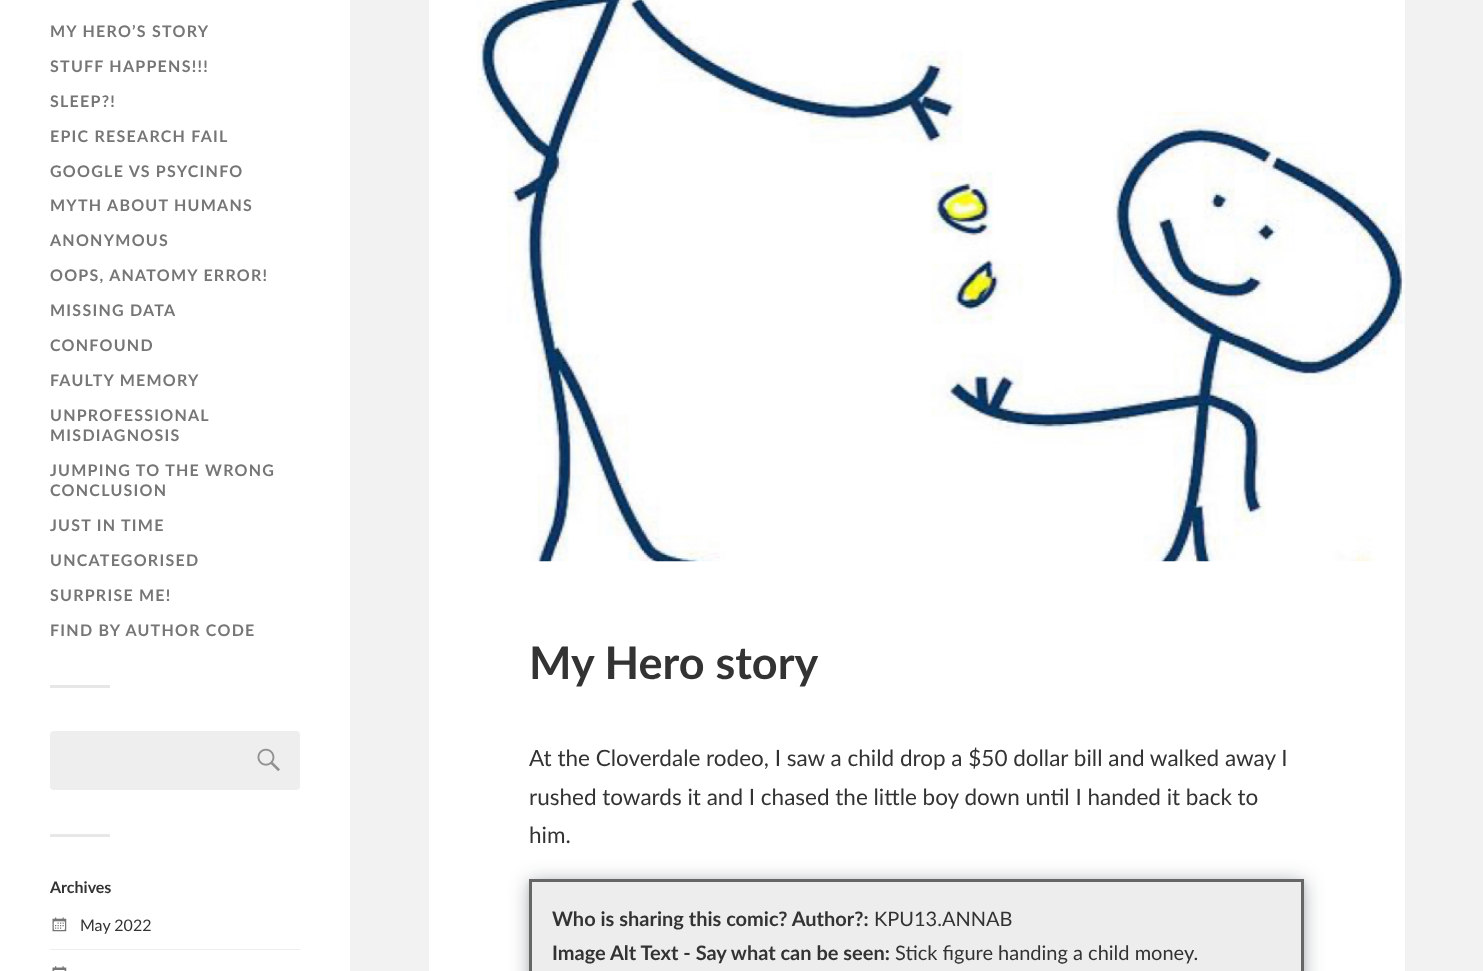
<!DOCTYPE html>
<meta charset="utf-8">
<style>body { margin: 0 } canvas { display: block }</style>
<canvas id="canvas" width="1483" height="971"></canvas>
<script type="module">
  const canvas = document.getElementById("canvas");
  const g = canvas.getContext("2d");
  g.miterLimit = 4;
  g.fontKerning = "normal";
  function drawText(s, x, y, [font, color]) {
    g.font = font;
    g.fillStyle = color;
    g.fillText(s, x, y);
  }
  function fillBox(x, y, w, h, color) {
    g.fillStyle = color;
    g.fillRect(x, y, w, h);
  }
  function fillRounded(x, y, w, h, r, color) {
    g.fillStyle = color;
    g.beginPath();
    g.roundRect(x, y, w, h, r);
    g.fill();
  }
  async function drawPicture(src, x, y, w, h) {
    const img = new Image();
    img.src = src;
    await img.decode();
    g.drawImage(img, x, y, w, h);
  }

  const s1 = ["bold 16px Lato", "#767676"];
  const s2 = ["bold 16px Lato", "#333333"];
  const s3 = ["16px Lato", "#333333"];
  const s4 = ["bold 45px Lato", "#333333"];
  const s5 = ["22.5px Lato", "#333333"];
  const s6 = ["bold 20px Lato", "#333333"];
  const s7 = ["20px Lato", "#333333"];

  fillBox(0, 0, 1483, 971, "#F2F2F2");
  fillBox(0, 0, 350, 971, "#FFFFFF");
  g.letterSpacing = "1.25px";
  drawText("MY HERO’S STORY", 50, 37, s1);
  drawText("STUFF HAPPENS!!!", 50, 72, s1);
  drawText("SLEEP?!", 50, 107, s1);
  drawText("EPIC RESEARCH FAIL", 50, 142, s1);
  drawText("GOOGLE VS PSYCINFO", 50, 177, s1);
  drawText("MYTH ABOUT HUMANS", 50, 211, s1);
  drawText("ANONYMOUS", 50, 246, s1);
  drawText("OOPS, ANATOMY ERROR!", 50, 281, s1);
  drawText("MISSING DATA", 50, 316, s1);
  drawText("CONFOUND", 50, 351, s1);
  drawText("FAULTY MEMORY", 50, 386, s1);
  drawText("UNPROFESSIONAL", 50, 421, s1);
  drawText("MISDIAGNOSIS", 50, 441, s1);
  drawText("JUMPING TO THE WRONG", 50, 476, s1);
  drawText("CONCLUSION", 50, 496, s1);
  drawText("JUST IN TIME", 50, 531, s1);
  drawText("UNCATEGORISED", 50, 566, s1);
  drawText("SURPRISE ME!", 50, 601, s1);
  drawText("FIND BY AUTHOR CODE", 50, 636, s1);
  fillBox(50, 685, 60, 3, "#E7E7E7");
  fillRounded(50, 731, 250, 59, 4, "#EEEEEE");
  await drawPicture("pic1.png", 257, 748, 23, 24);
  fillBox(50, 834, 60, 3, "#E7E7E7");
  g.letterSpacing = "0px";
  drawText("Archives", 50, 893, s2);
  fillBox(50, 949, 250, 1, "#EEEEEE");
  await drawPicture("pic2.png", 52, 917, 15, 15);
  drawText("May 2022", 80, 931, s3);
  await drawPicture("pic3.png", 52, 966, 15, 5);
  fillBox(429, 0, 976, 971, "#FFFFFF");
  await drawPicture("pic4.png", 477, 0, 928, 562);
  drawText("My Hero story", 529, 679, s4);
  drawText("At the Cloverdale rodeo, I saw a child drop a $50 dollar bill and walked away I", 529, 766, s5);
  drawText("rushed towards it and I chased the little boy down until I handed it back to", 529, 805, s5);
  drawText("him.", 529, 843, s5);
  g.fillStyle = "rgba(14, 30, 37, 0.32)";
  g.filter = "blur(10px)";
  g.beginPath();
  g.rect(529, 881, 775, 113);
  g.fill();
  g.filter = "none";
  g.fillStyle = "rgba(14, 30, 37, 0.12)";
  g.filter = "blur(2.5px)";
  g.beginPath();
  g.rect(529, 881, 775, 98);
  g.fill();
  g.filter = "none";
  g.fillStyle = "#EDEDED";
  g.beginPath();
  g.rect(530.5, 880.5, 772, 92);
  g.fill();
  g.strokeStyle = "#666666";
  g.lineWidth = 3;
  g.stroke();
  drawText("Who is sharing this comic? Author?:", 552, 926, s6);
  drawText("KPU13.ANNAB", 874, 926, s7);
  drawText("Image Alt Text - Say what can be seen:", 552, 960, s6);
  drawText("Stick figure handing a child money.", 895, 960, s7);
</script>
